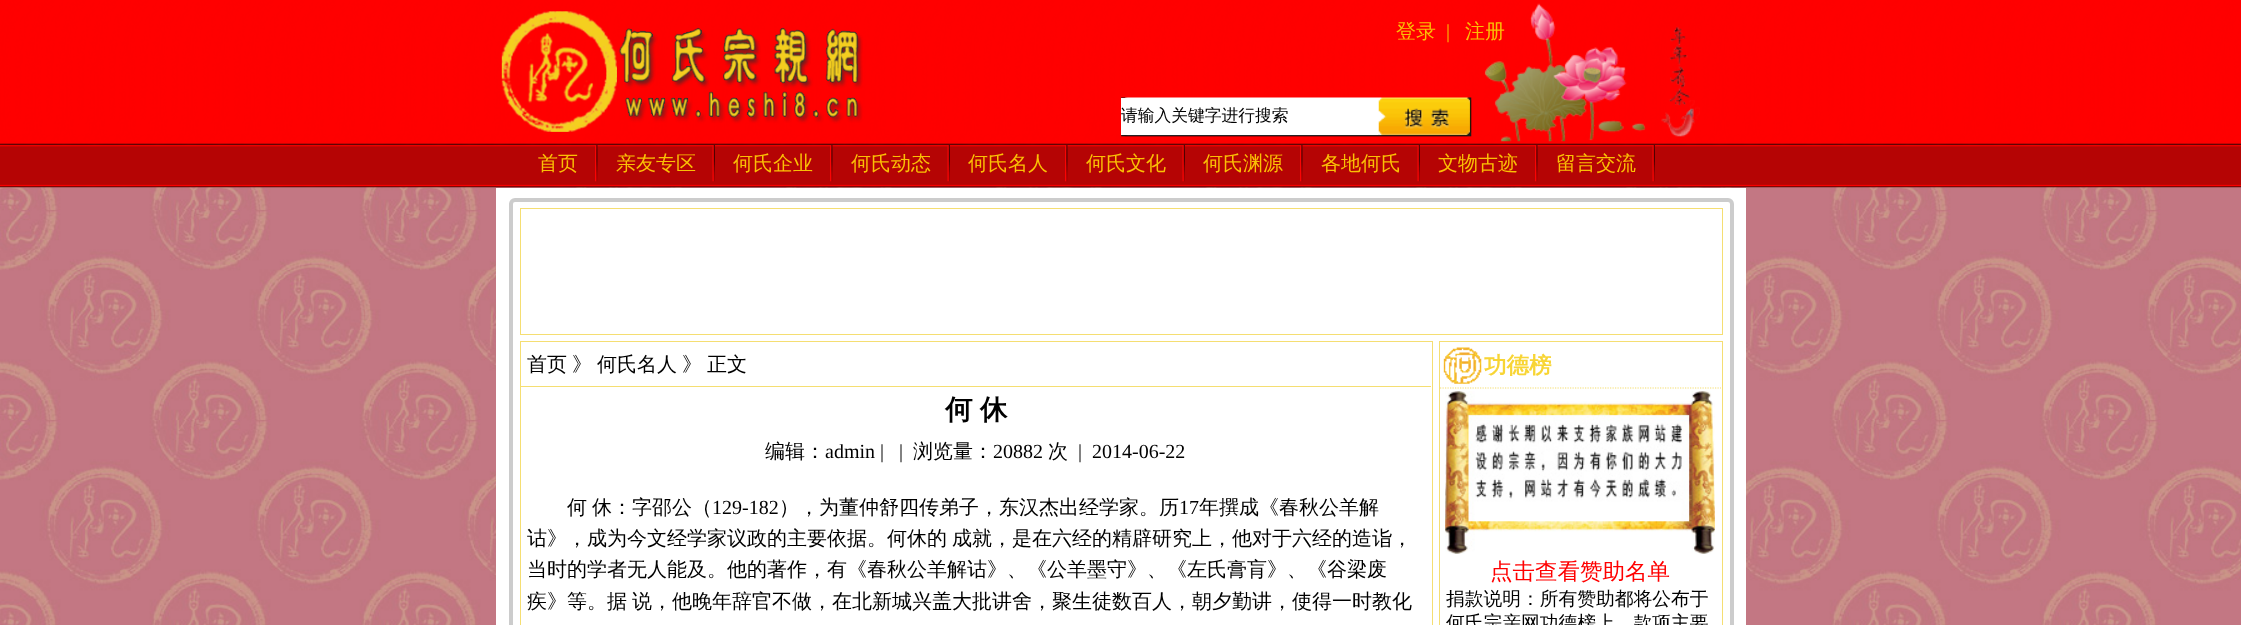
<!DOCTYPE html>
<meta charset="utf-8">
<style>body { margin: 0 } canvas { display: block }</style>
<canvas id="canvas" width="2241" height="625"></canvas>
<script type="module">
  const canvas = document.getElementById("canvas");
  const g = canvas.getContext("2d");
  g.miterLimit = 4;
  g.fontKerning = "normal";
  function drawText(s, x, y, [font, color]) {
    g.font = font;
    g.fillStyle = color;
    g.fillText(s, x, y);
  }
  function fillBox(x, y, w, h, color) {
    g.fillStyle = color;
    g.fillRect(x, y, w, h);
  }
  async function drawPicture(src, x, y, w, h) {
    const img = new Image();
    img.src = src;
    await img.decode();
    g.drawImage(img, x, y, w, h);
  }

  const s1 = ["500 20px WenQuanYi Zen Hei", "#FAC005"];
  const s2 = ["20px Liberation Serif", "#FAC005"];
  const s3 = ["500 16.75px WenQuanYi Zen Hei", "#000000"];
  const s4 = ["500 20px WenQuanYi Zen Hei", "#000000"];
  const s5 = ["bold 27.5px WenQuanYi Zen Hei", "#000000"];
  const s6 = ["20px Liberation Serif", "#000000"];
  const s7 = ["bold 22.5px WenQuanYi Zen Hei", "#F8D535"];
  const s8 = ["500 22.5px WenQuanYi Zen Hei", "#FF0000"];
  const s9 = ["500 18.75px WenQuanYi Zen Hei", "#000000"];

  fillBox(0, 0, 2241, 625, "#FFFFFF");
  await drawPicture("pic1.png", 0, 187, 2241, 438);
  await drawPicture("pic2.png", 0, 0, 2241, 188);
  await drawPicture("pic3.png", 501, 11, 362, 121);
  await drawPicture("pic4.png", 1484, 3, 216, 139);
  drawText("登录", 1396, 38, s1);
  drawText("|", 1446, 38, s2);
  drawText("注册", 1465, 38, s1);
  await drawPicture("pic5.png", 1121, 97, 351, 40);
  fillBox(1121, 98, 257, 37, "#FFFFFF");
  drawText("请输入关键字进行搜索", 1121, 121, s3);
  await drawPicture("pic6.png", 595, 145, 3, 37);
  drawText("首页", 538, 170, s1);
  await drawPicture("pic7.png", 712, 145, 3, 37);
  drawText("亲友专区", 616, 170, s1);
  await drawPicture("pic8.png", 830, 145, 3, 37);
  drawText("何氏企业", 733, 170, s1);
  await drawPicture("pic7.png", 947, 145, 3, 37);
  drawText("何氏动态", 851, 170, s1);
  await drawPicture("pic6.png", 1065, 145, 3, 37);
  drawText("何氏名人", 968, 170, s1);
  await drawPicture("pic9.png", 1182, 145, 3, 37);
  drawText("何氏文化", 1086, 170, s1);
  await drawPicture("pic8.png", 1300, 145, 3, 37);
  drawText("何氏渊源", 1203, 170, s1);
  await drawPicture("pic7.png", 1417, 145, 3, 37);
  drawText("各地何氏", 1321, 170, s1);
  await drawPicture("pic6.png", 1535, 145, 3, 37);
  drawText("文物古迹", 1438, 170, s1);
  await drawPicture("pic7.png", 1652, 145, 3, 37);
  drawText("留言交流", 1556, 170, s1);
  fillBox(496, 188, 1250, 437, "#FFFFFF");
  g.beginPath();
  g.roundRect(511, 200, 1221, 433, 4);
  g.strokeStyle = "#CCCCCC";
  g.lineWidth = 4;
  g.stroke();
  g.strokeStyle = "#F5DE72";
  g.lineWidth = 1;
  g.strokeRect(520.5, 208.5, 1202, 126);
  g.strokeRect(520.5, 341.5, 912, 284);
  fillBox(521, 386, 910, 1, "#F5DE72");
  drawText("首页", 527, 371, s4);
  drawText("》", 572, 371, s4);
  drawText("何氏名人", 597, 371, s4);
  drawText("》", 682, 371, s4);
  drawText("正文", 707, 371, s4);
  g.wordSpacing = "-1px";
  drawText("何 休", 945, 419, s5);
  g.wordSpacing = "0px";
  drawText("编辑：", 765, 458, s4);
  drawText("admin |", 825, 458, s6);
  drawText("|", 899, 458, s6);
  drawText("浏览量：", 913, 458, s4);
  drawText("20882", 993, 458, s6);
  drawText("次", 1048, 458, s4);
  drawText("|", 1078, 458, s6);
  drawText("2014-06-22", 1092, 458, s6);
  g.wordSpacing = "-1px";
  drawText("何 休：字邵公（", 567, 514, s4);
  g.wordSpacing = "0px";
  drawText("129-182", 712, 514, s6);
  drawText("），为董仲舒四传弟子，东汉杰出经学家。历", 779, 514, s4);
  drawText("17", 1179, 514, s6);
  drawText("年撰成《春秋公羊解", 1199, 514, s4);
  g.wordSpacing = "-1px";
  drawText("诂》，成为今文经学家议政的主要依据。何休的 成就，是在六经的精辟研究上，他对于六经的造诣，", 527, 545, s4);
  g.wordSpacing = "0px";
  drawText("当时的学者无人能及。他的著作，有《春秋公羊解诂》、《公羊墨守》、《左氏膏肓》、《谷梁废", 527, 576, s4);
  g.wordSpacing = "-1px";
  drawText("疾》等。据 说，他晚年辞官不做，在北新城兴盖大批讲舍，聚生徒数百人，朝夕勤讲，使得一时教化", 527, 608, s4);
  g.strokeRect(1439.5, 341.5, 283, 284);
  await drawPicture("pic10.png", 1443, 347, 39, 37);
  g.beginPath();
  g.moveTo(1440, 388);
  g.lineTo(1721, 388);
  g.lineWidth = 1.2;
  g.setLineDash([1.25, 1.25]);
  g.stroke();
  g.wordSpacing = "0px";
  drawText("功德榜", 1484, 373, s7);
  await drawPicture("pic11.png", 1445, 391, 270, 163);
  drawText("点击查看赞助名单", 1490, 579, s8);
  drawText("捐款说明：所有赞助都将公布于", 1446, 605, s9);
  drawText("何氏宗亲网功德榜上，款项主要", 1446, 629, s9);
</script>
